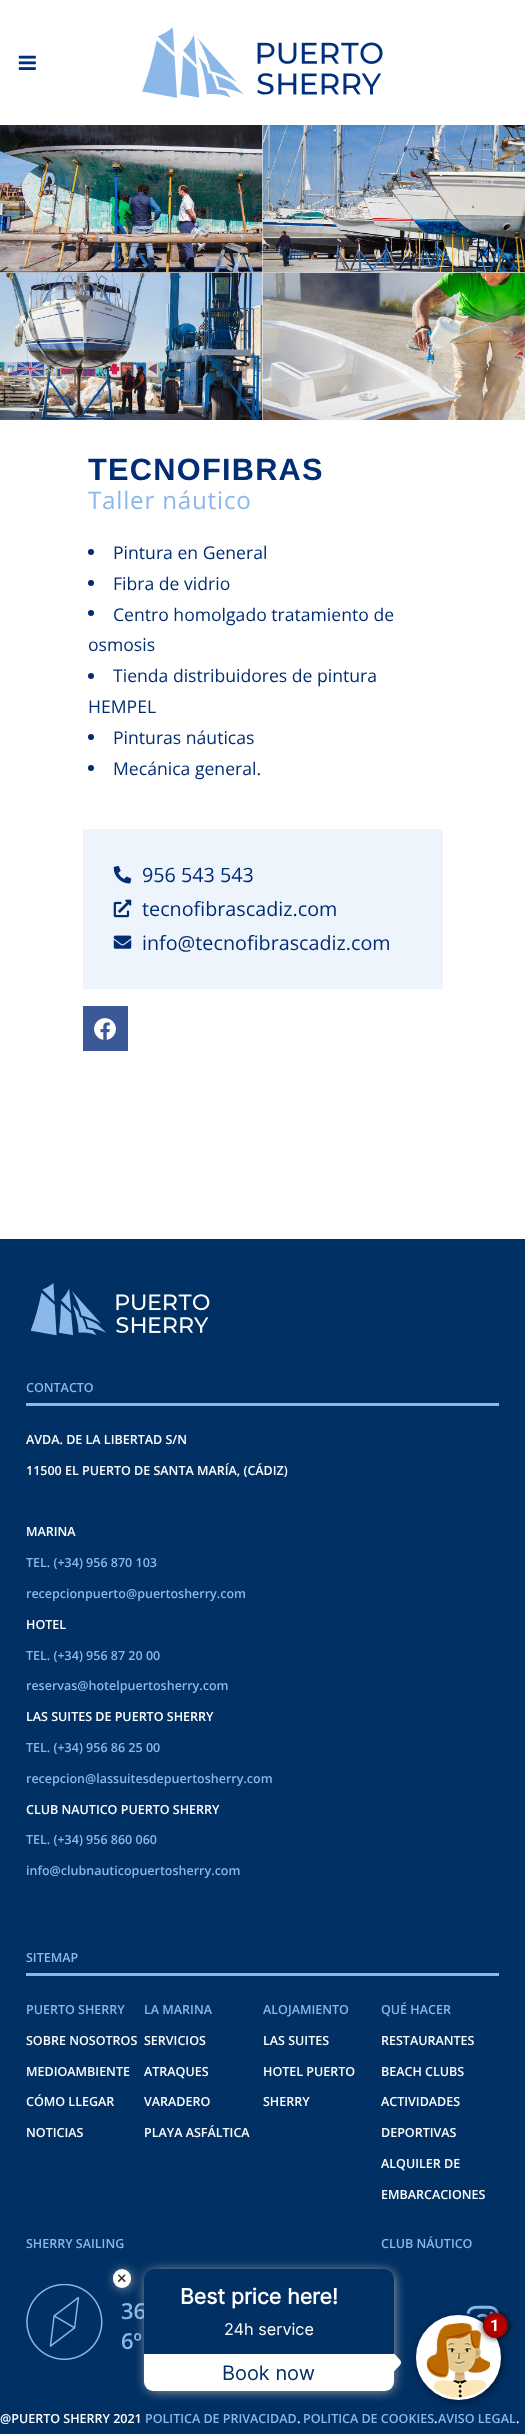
<!DOCTYPE html>
<meta charset="utf-8">
<style>body { margin: 0 } canvas { display: block }</style>
<canvas id="canvas" width="525" height="2434"></canvas>
<script type="module">
  const canvas = document.getElementById("canvas");
  const g = canvas.getContext("2d");
  g.miterLimit = 4;
  g.fontKerning = "normal";
  function drawText(s, x, y, [font, color]) {
    g.font = font;
    g.fillStyle = color;
    g.fillText(s, x, y);
  }
  function fillBox(x, y, w, h, color) {
    g.fillStyle = color;
    g.fillRect(x, y, w, h);
  }
  function fillRounded(x, y, w, h, r, color) {
    g.fillStyle = color;
    g.beginPath();
    g.roundRect(x, y, w, h, r);
    g.fill();
  }
  async function drawPicture(src, x, y, w, h) {
    const img = new Image();
    img.src = src;
    await img.decode();
    g.drawImage(img, x, y, w, h);
  }

  const s1 = ["bold 30.75px Liberation Sans", "#002D73"];
  const s2 = ["24.25px Open Sans", "#8BB8E8"];
  const s3 = ["17.6px Open Sans", "#002D73"];
  const s4 = ["19.75px Open Sans", "#002D73"];
  const s5 = ["600 12.5px Open Sans", "#8BB8E8"];
  const s6 = ["600 12.5px Open Sans", "#FFFFFF"];
  const s7 = ["600 22px Open Sans", "#8BB8E8"];
  const s8 = ["18px Roboto", "#333333"];
  const s9 = ["bold 21.25px Inter", "#FFFFFF"];
  const s10 = ["16.25px Inter", "#FFFFFF"];
  const s11 = ["20px Inter", "#003064"];
  const s12 = ["bold 16.25px Roboto", "#FFFFFF"];

  fillBox(0, 0, 525, 2434, "#FFFFFF");
  await drawPicture("pic1.png", 18, 55, 18, 15);
  await drawPicture("pic2.png", 142, 27, 241, 71);
  await drawPicture("pic3.png", 0, 125, 263, 148);
  await drawPicture("pic4.png", 262, 125, 263, 148);
  await drawPicture("pic5.png", 0, 272, 263, 148);
  await drawPicture("pic6.png", 262, 272, 263, 148);
  g.letterSpacing = "1.25px";
  drawText("TECNOFIBRAS", 88, 480, s1);
  g.letterSpacing = "0.75px";
  drawText("Taller náutico", 88, 509, s2);
  g.fillStyle = "#002D73";
  g.beginPath();
  g.arc(91, 552, 3, 0, Math.PI * 2);
  g.fill();
  g.letterSpacing = "0px";
  drawText("Pintura en General", 113, 559, s3);
  g.beginPath();
  g.arc(91, 583, 3, 0, Math.PI * 2);
  g.fill();
  drawText("Fibra de vidrio", 113, 590, s3);
  g.beginPath();
  g.arc(91, 613, 3, 0, Math.PI * 2);
  g.fill();
  drawText("Centro homolgado tratamiento de", 113, 621, s3);
  drawText("osmosis", 88, 651, s3);
  g.beginPath();
  g.arc(91, 676, 3, 0, Math.PI * 2);
  g.fill();
  drawText("Tienda distribuidores de pintura", 113, 682, s3);
  drawText("HEMPEL", 88, 713, s3);
  g.beginPath();
  g.arc(91, 737, 3, 0, Math.PI * 2);
  g.fill();
  drawText("Pinturas náuticas", 113, 744, s3);
  g.beginPath();
  g.arc(91, 768, 3, 0, Math.PI * 2);
  g.fill();
  drawText("Mecánica general.", 113, 775, s3);
  fillBox(83, 829, 360, 160, "#EDF4FC");
  await drawPicture("pic7.png", 113, 866, 19, 18);
  drawText("956 543 543", 142, 882, s4);
  await drawPicture("pic8.png", 113, 899, 19, 19);
  drawText("tecnofibrascadiz.com", 142, 916, s4);
  await drawPicture("pic9.png", 113, 935, 19, 14);
  drawText("info@tecnofibrascadiz.com", 142, 950, s4);
  fillBox(83, 1006, 45, 45, "#3B5998");
  await drawPicture("pic10.png", 94, 1018, 22, 22);
  fillBox(0, 1239, 525, 1195, "#003064");
  await drawPicture("pic11.png", 30, 1283, 180, 53);
  fillBox(26, 1403, 473, 3, "#8BB8E8");
  drawText("CONTACTO", 26, 1392, s5);
  drawText("AVDA. DE LA LIBERTAD S/N", 26, 1444, s6);
  drawText("11500 EL PUERTO DE SANTA MARÍA, (CÁDIZ)", 26, 1475, s6);
  drawText("MARINA", 26, 1536, s6);
  drawText("TEL. (+34) 956 870 103", 26, 1567, s5);
  drawText("recepcionpuerto@puertosherry.com", 26, 1598, s5);
  drawText("HOTEL", 26, 1629, s6);
  drawText("TEL. (+34) 956 87 20 00", 26, 1660, s5);
  drawText("reservas@hotelpuertosherry.com", 26, 1690, s5);
  drawText("LAS SUITES DE PUERTO SHERRY", 26, 1721, s6);
  drawText("TEL. (+34) 956 86 25 00", 26, 1752, s5);
  drawText("recepcion@lassuitesdepuertosherry.com", 26, 1783, s5);
  drawText("CLUB NAUTICO PUERTO SHERRY", 26, 1814, s6);
  drawText("TEL. (+34) 956 860 060", 26, 1844, s5);
  drawText("info@clubnauticopuertosherry.com", 26, 1875, s5);
  fillBox(26, 1973, 473, 3, "#8BB8E8");
  drawText("SITEMAP", 26, 1962, s5);
  drawText("PUERTO SHERRY", 26, 2014, s5);
  drawText("SOBRE NOSOTROS", 26, 2045, s6);
  drawText("MEDIOAMBIENTE", 26, 2076, s6);
  drawText("CÓMO LLEGAR", 26, 2106, s6);
  drawText("NOTICIAS", 26, 2137, s6);
  drawText("LA MARINA", 144, 2014, s5);
  drawText("SERVICIOS", 144, 2045, s6);
  drawText("ATRAQUES", 144, 2076, s6);
  drawText("VARADERO", 144, 2106, s6);
  drawText("PLAYA ASFÁLTICA", 144, 2137, s6);
  drawText("ALOJAMIENTO", 263, 2014, s5);
  drawText("LAS SUITES", 263, 2045, s6);
  drawText("HOTEL PUERTO", 263, 2076, s6);
  drawText("SHERRY", 263, 2106, s6);
  drawText("QUÉ HACER", 381, 2014, s5);
  drawText("RESTAURANTES", 381, 2045, s6);
  drawText("BEACH CLUBS", 381, 2076, s6);
  drawText("ACTIVIDADES", 381, 2106, s6);
  drawText("DEPORTIVAS", 381, 2137, s6);
  drawText("ALQUILER DE", 381, 2168, s6);
  drawText("EMBARCACIONES", 381, 2199, s6);
  drawText("SHERRY SAILING", 26, 2248, s5);
  drawText("CLUB NÁUTICO", 381, 2248, s5);
  await drawPicture("pic12.png", 26, 2284, 77, 76);
  drawText("36", 121, 2319, s7);
  drawText("6º", 121, 2349, s7);
  await drawPicture("pic13.png", 466, 2305, 33, 15);
  drawText("@PUERTO SHERRY 2021", 0, 2423, s6);
  drawText("POLITICA DE PRIVACIDAD", 145, 2423, s5);
  drawText(".", 297, 2423, s6);
  drawText("POLITICA DE COOKIES", 303, 2423, s5);
  drawText(".", 434, 2423, s6);
  drawText("AVISO LEGAL", 438, 2423, s5);
  drawText(".", 516, 2423, s6);
  g.beginPath();
  g.arc(459, 2358, 43.5, 0, Math.PI * 2);
  g.strokeStyle = "#003064";
  g.lineWidth = 3;
  g.stroke();
  g.fillStyle = "#000000";
  g.filter = "blur(6px)";
  g.beginPath();
  g.roundRect(421, 2320, 78, 78, 39);
  g.fill();
  g.filter = "none";
  g.fillStyle = "#FFFFFF";
  g.beginPath();
  g.arc(458.5, 2357.5, 41, 0, Math.PI * 2);
  g.fill();
  g.strokeStyle = "#FFFFFF";
  g.stroke();
  g.fillStyle = "#AAAAAA";
  g.filter = "blur(6px)";
  g.beginPath();
  g.roundRect(146, 2271, 248, 120, 9);
  g.fill();
  g.filter = "none";
  fillRounded(144, 2269, 250, 122, 10, "#003064");
  g.fillStyle = "#AAAAAA";
  g.filter = "blur(6px)";
  g.beginPath();
  g.roundRect(115, 2271, 16, 17, 8);
  g.fill();
  g.filter = "none";
  fillRounded(113, 2269, 18, 19, 9, "#FFFFFF");
  drawText("×", 117, 2284, s8);
  drawText("Best price here!", 180, 2304, s9);
  drawText("24h service", 224, 2335, s10);
  g.beginPath();
  g.roundRect(144, 2354, 250, 37, [0, 0, 9, 9]);
  g.fill();
  drawText("Book now", 222, 2380, s11);
  g.fillStyle = "#FFFFFF";
  g.beginPath();
  g.moveTo(394, 2353.5);
  g.bezierCurveTo(403.5, 2363.5, 403.5, 2361.5, 394, 2371.5);
  g.lineTo(385, 2362.5);
  g.closePath();
  g.fill();
  await drawPicture("pic14.png", 426, 2323, 64, 75);
  g.fillStyle = "#000000";
  g.filter = "blur(3px)";
  g.beginPath();
  g.roundRect(483, 2313, 25, 25, 12.5);
  g.fill();
  g.filter = "none";
  g.fillStyle = "#B60000";
  g.beginPath();
  g.arc(495.5, 2325.5, 11, 0, Math.PI * 2);
  g.fill();
  g.strokeStyle = "#A30000";
  g.stroke();
  drawText("1", 490, 2331, s12);
</script>
